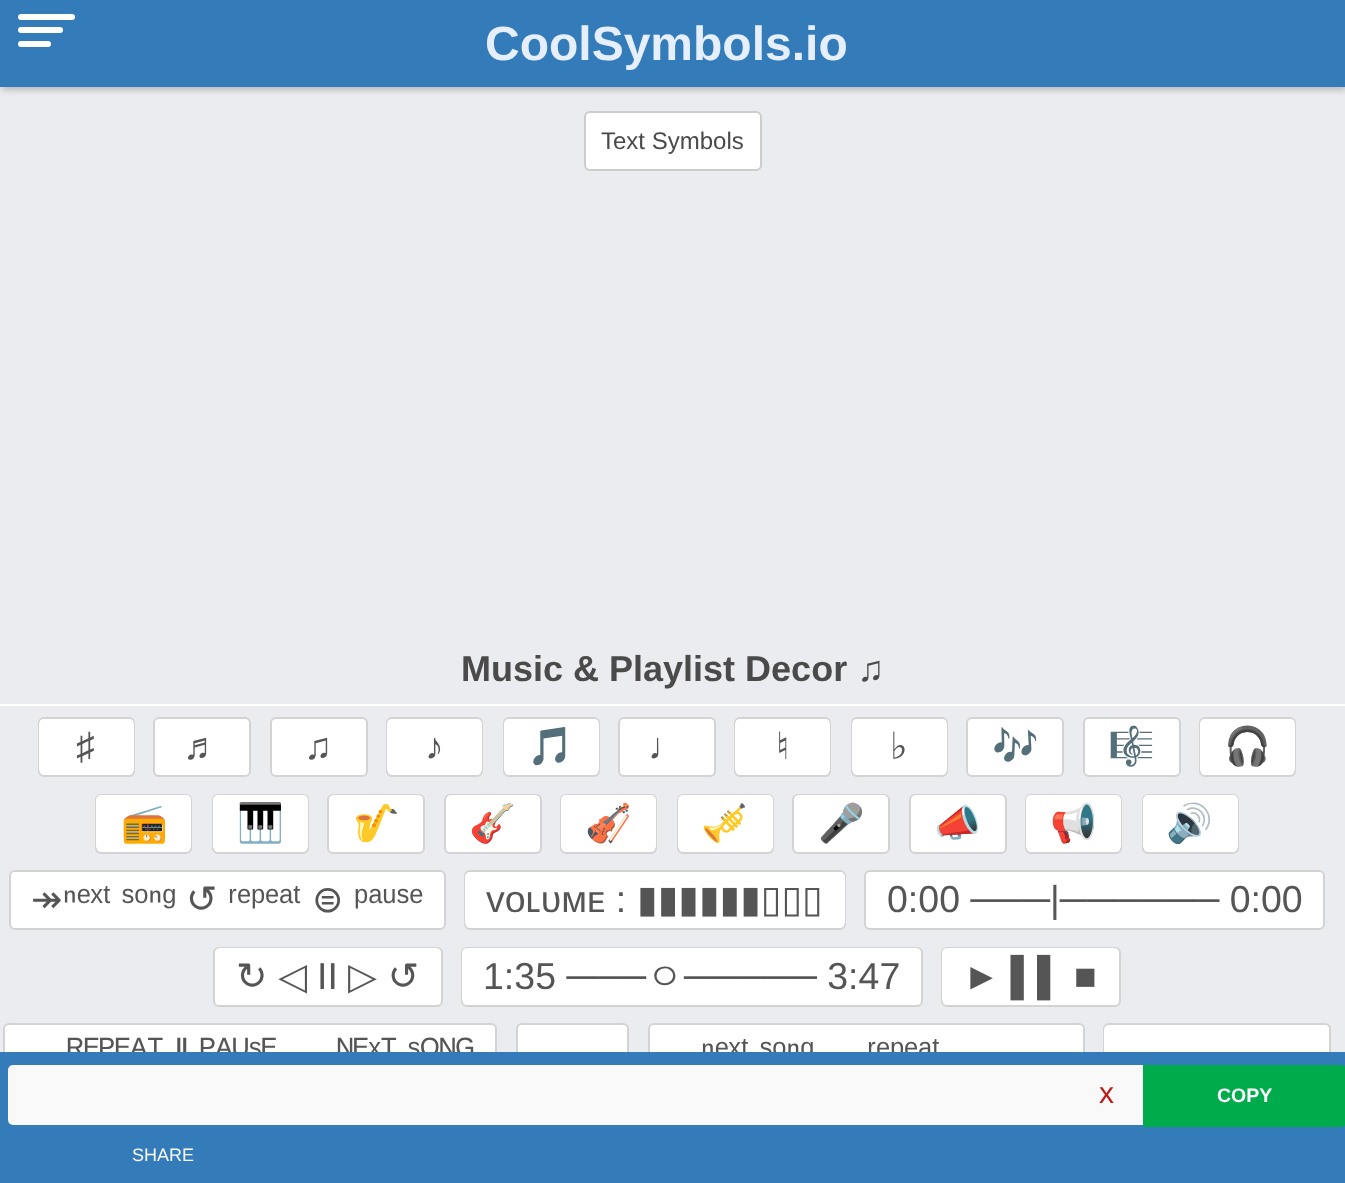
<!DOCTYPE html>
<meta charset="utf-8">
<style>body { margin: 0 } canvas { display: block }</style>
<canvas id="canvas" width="1345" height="1183"></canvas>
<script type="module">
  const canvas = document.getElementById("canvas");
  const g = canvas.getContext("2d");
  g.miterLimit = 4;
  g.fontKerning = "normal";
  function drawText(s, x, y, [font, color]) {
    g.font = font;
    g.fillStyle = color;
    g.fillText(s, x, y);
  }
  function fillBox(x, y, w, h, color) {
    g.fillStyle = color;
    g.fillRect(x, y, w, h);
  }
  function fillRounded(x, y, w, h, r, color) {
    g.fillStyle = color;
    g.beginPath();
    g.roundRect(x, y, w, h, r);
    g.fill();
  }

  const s1 = ["bold 48px Liberation Sans", "#E5EFFF"];
  const s2 = ["24px Liberation Sans", "#4A4A4A"];
  const s3 = ["bold 36px Liberation Sans", "#4A4A4A"];
  const s4 = ["37.5px Liberation Sans", "#555555"];
  const s5 = ["37.5px Noto Color Emoji", "#555555"];
  const s6 = ["37.5px DejaVu Sans", "#555555"];
  const s7 = ["500 37.5px WenQuanYi Zen Hei", "#555555"];
  const s8 = ["30px Liberation Sans", "#BD1C1C"];
  const s9 = ["bold 19.5px Liberation Sans", "#FFFFFF"];
  const s10 = ["18px Liberation Sans", "#F9F9F9"];

  fillBox(0, 0, 1345, 1183, "#EBECEF");
  g.fillStyle = "rgba(0, 0, 0, 0.21)";
  g.filter = "blur(3px)";
  g.beginPath();
  g.rect(2, 3, 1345, 87);
  g.fill();
  g.filter = "none";
  fillBox(0, 0, 1345, 87, "#337BB9");
  fillRounded(18, 14, 57, 6, 3, "#FFFFFF");
  fillRounded(18, 27, 45, 6, 3, "#FFFFFF");
  fillRounded(18, 41, 33, 6, 3, "#FFFFFF");
  drawText("CoolSymbols.io", 485, 60, s1);
  g.fillStyle = "#FFFFFF";
  g.beginPath();
  g.roundRect(585, 112, 176, 58, 5);
  g.fill();
  g.strokeStyle = "#CCCCCC";
  g.lineWidth = 2;
  g.stroke();
  drawText("Text Symbols", 601, 149, s2);
  fillBox(0, 704, 1345, 2, "#FFFFFF");
  drawText("Music & Playlist Decor ♫", 461, 681, s3);
  g.fillStyle = "#FFFFFF";
  g.beginPath();
  g.roundRect(39, 718, 95, 58, 5);
  g.fill();
  g.strokeStyle = "#D3D3D3";
  g.stroke();
  fillRounded(39, 719, 95, 55, 5, "#FFFFFF");
  drawText("♯", 76, 759, s4);
  g.fillStyle = "#FFFFFF";
  g.beginPath();
  g.roundRect(154, 718, 96, 58, 5);
  g.fill();
  g.stroke();
  fillRounded(155, 719, 94, 55, 5, "#FFFFFF");
  drawText("♬", 183, 759, s4);
  g.fillStyle = "#FFFFFF";
  g.beginPath();
  g.roundRect(271, 718, 96, 58, 5);
  g.fill();
  g.stroke();
  fillRounded(272, 719, 94, 55, 5, "#FFFFFF");
  drawText("♫", 304, 759, s4);
  g.fillStyle = "#FFFFFF";
  g.beginPath();
  g.roundRect(387, 718, 95, 58, 5);
  g.fill();
  g.stroke();
  fillRounded(387, 719, 95, 55, 5, "#FFFFFF");
  drawText("♪", 425, 759, s4);
  g.fillStyle = "#FFFFFF";
  g.beginPath();
  g.roundRect(504, 718, 95, 58, 5);
  g.fill();
  g.stroke();
  fillRounded(504, 719, 95, 55, 5, "#FFFFFF");
  drawText("🎵", 527, 759, s5);
  g.fillStyle = "#FFFFFF";
  g.beginPath();
  g.roundRect(619, 718, 96, 58, 5);
  g.fill();
  g.stroke();
  fillRounded(620, 719, 94, 55, 5, "#FFFFFF");
  drawText("♩", 648, 759, s4);
  g.fillStyle = "#FFFFFF";
  g.beginPath();
  g.roundRect(735, 718, 95, 58, 5);
  g.fill();
  g.stroke();
  fillRounded(735, 719, 95, 55, 5, "#FFFFFF");
  drawText("♮", 776, 759, s6);
  g.fillStyle = "#FFFFFF";
  g.beginPath();
  g.roundRect(852, 718, 95, 58, 5);
  g.fill();
  g.stroke();
  fillRounded(852, 719, 95, 55, 5, "#FFFFFF");
  drawText("♭", 890, 759, s6);
  g.fillStyle = "#FFFFFF";
  g.beginPath();
  g.roundRect(967, 718, 96, 58, 5);
  g.fill();
  g.stroke();
  fillRounded(968, 719, 94, 55, 5, "#FFFFFF");
  drawText("🎶", 992, 759, s5);
  g.fillStyle = "#FFFFFF";
  g.beginPath();
  g.roundRect(1084, 718, 96, 58, 5);
  g.fill();
  g.stroke();
  fillRounded(1085, 719, 94, 55, 5, "#FFFFFF");
  drawText("🎼", 1108, 759, s5);
  g.fillStyle = "#FFFFFF";
  g.beginPath();
  g.roundRect(1200, 718, 95, 58, 5);
  g.fill();
  g.stroke();
  fillRounded(1200, 719, 95, 55, 5, "#FFFFFF");
  drawText("🎧", 1224, 759, s5);
  g.fillStyle = "#FFFFFF";
  g.beginPath();
  g.roundRect(96, 795, 95, 58, 5);
  g.fill();
  g.stroke();
  fillRounded(96, 795, 95, 56, 5, "#FFFFFF");
  drawText("📻", 121, 836, s5);
  g.fillStyle = "#FFFFFF";
  g.beginPath();
  g.roundRect(213, 795, 95, 58, 5);
  g.fill();
  g.stroke();
  fillRounded(213, 795, 95, 56, 5, "#FFFFFF");
  drawText("🎹", 237, 836, s5);
  g.fillStyle = "#FFFFFF";
  g.beginPath();
  g.roundRect(328, 795, 96, 58, 5);
  g.fill();
  g.stroke();
  fillRounded(329, 795, 94, 56, 5, "#FFFFFF");
  drawText("🎷", 353, 836, s5);
  g.fillStyle = "#FFFFFF";
  g.beginPath();
  g.roundRect(445, 795, 96, 58, 5);
  g.fill();
  g.stroke();
  fillRounded(446, 795, 94, 56, 5, "#FFFFFF");
  drawText("🎸", 469, 836, s5);
  g.fillStyle = "#FFFFFF";
  g.beginPath();
  g.roundRect(561, 795, 95, 58, 5);
  g.fill();
  g.stroke();
  fillRounded(561, 795, 95, 56, 5, "#FFFFFF");
  drawText("🎻", 585, 836, s5);
  g.fillStyle = "#FFFFFF";
  g.beginPath();
  g.roundRect(678, 795, 95, 58, 5);
  g.fill();
  g.stroke();
  fillRounded(678, 795, 95, 56, 5, "#FFFFFF");
  drawText("🎺", 701, 836, s5);
  g.fillStyle = "#FFFFFF";
  g.beginPath();
  g.roundRect(793, 795, 96, 58, 5);
  g.fill();
  g.stroke();
  fillRounded(794, 795, 94, 56, 5, "#FFFFFF");
  drawText("🎤", 818, 836, s5);
  g.fillStyle = "#FFFFFF";
  g.beginPath();
  g.roundRect(910, 795, 96, 58, 5);
  g.fill();
  g.stroke();
  fillRounded(911, 795, 94, 56, 5, "#FFFFFF");
  drawText("📣", 934, 836, s5);
  g.fillStyle = "#FFFFFF";
  g.beginPath();
  g.roundRect(1026, 795, 95, 58, 5);
  g.fill();
  g.stroke();
  fillRounded(1026, 795, 95, 56, 5, "#FFFFFF");
  drawText("📢", 1050, 836, s5);
  g.fillStyle = "#FFFFFF";
  g.beginPath();
  g.roundRect(1143, 795, 95, 58, 5);
  g.fill();
  g.stroke();
  fillRounded(1143, 795, 95, 56, 5, "#FFFFFF");
  drawText("🔊", 1166, 836, s5);
  g.fillStyle = "#FFFFFF";
  g.beginPath();
  g.roundRect(10, 871, 435, 58, 5);
  g.fill();
  g.stroke();
  fillRounded(11, 872, 433, 55, 5, "#FFFFFF");
  drawText("↠", 31, 912, s6);
  drawText("ⁿᵉˣᵗ ˢᵒⁿᵍ", 63, 912, s4);
  drawText("↺", 186, 912, s6);
  drawText("ʳᵉᵖᵉᵃᵗ", 228, 912, s4);
  drawText("⊜", 312, 912, s6);
  drawText("ᵖᵃᵘˢᵉ", 354, 912, s4);
  g.fillStyle = "#FFFFFF";
  g.beginPath();
  g.roundRect(465, 871, 380, 58, 5);
  g.fill();
  g.stroke();
  fillRounded(465, 872, 380, 55, 5, "#FFFFFF");
  drawText("ᴠᴏʟᴜᴍᴇ :", 486, 912, s4);
  drawText("▮▮▮▮▮▮▯▯▯", 637, 912, s6);
  g.fillStyle = "#FFFFFF";
  g.beginPath();
  g.roundRect(865, 871, 459, 58, 5);
  g.fill();
  g.stroke();
  fillRounded(866, 872, 457, 55, 5, "#FFFFFF");
  drawText("0:00 ───|────── 0:00", 887, 912, s4);
  g.fillStyle = "#FFFFFF";
  g.beginPath();
  g.roundRect(214, 948, 228, 58, 5);
  g.fill();
  g.stroke();
  fillRounded(215, 948, 226, 56, 5, "#FFFFFF");
  g.wordSpacing = "-1px";
  drawText("↻ ◁", 236, 989, s6);
  g.wordSpacing = "0px";
  drawText("II", 317, 989, s4);
  g.wordSpacing = "-1px";
  drawText("▷ ↺", 348, 989, s6);
  g.fillStyle = "#FFFFFF";
  g.beginPath();
  g.roundRect(462, 948, 460, 58, 5);
  g.fill();
  g.stroke();
  fillRounded(462, 948, 459, 56, 5, "#FFFFFF");
  g.wordSpacing = "0px";
  drawText("1:35 ───", 483, 989, s4);
  drawText("ㅇ", 646, 989, s7);
  drawText("───── 3:47", 684, 989, s4);
  g.fillStyle = "#FFFFFF";
  g.beginPath();
  g.roundRect(942, 948, 178, 58, 5);
  g.fill();
  g.stroke();
  fillRounded(942, 948, 177, 56, 5, "#FFFFFF");
  drawText("► ▌▌ ■", 963, 989, s4);
  g.fillStyle = "#FFFFFF";
  g.beginPath();
  g.roundRect(4, 1024, 492, 58, 5);
  g.fill();
  g.stroke();
  fillRounded(5, 1025, 490, 55, 5, "#FFFFFF");
  drawText("ᴿᴱᴾᴱᴬᵀ ‖ ᴾᴬᵁˢᴱ", 67, 1065, s4);
  drawText("ᴺᴱˣᵀ ˢᴼᴺᴳ", 337, 1065, s4);
  g.fillStyle = "#FFFFFF";
  g.beginPath();
  g.roundRect(517, 1024, 111, 58, 5);
  g.fill();
  g.stroke();
  fillRounded(518, 1025, 109, 55, 5, "#FFFFFF");
  g.beginPath();
  g.roundRect(649, 1024, 435, 58, 5);
  g.fill();
  g.stroke();
  fillRounded(650, 1025, 433, 55, 5, "#FFFFFF");
  drawText("ⁿᵉˣᵗ ˢᵒⁿᵍ", 701, 1065, s4);
  drawText("ʳᵉᵖᵉᵃᵗ", 867, 1065, s4);
  g.fillStyle = "#FFFFFF";
  g.beginPath();
  g.roundRect(1104, 1024, 226, 58, 5);
  g.fill();
  g.stroke();
  fillRounded(1104, 1025, 225, 55, 5, "#FFFFFF");
  fillBox(0, 1052, 1345, 131, "#337BB9");
  g.fillStyle = "#F9F9F9";
  g.beginPath();
  g.roundRect(8, 1065, 1135, 60, [5, 0, 0, 5]);
  g.fill();
  drawText("x", 1099, 1103, s8);
  g.fillStyle = "#00AB4C";
  g.beginPath();
  g.moveTo(1143, 1065);
  g.lineTo(1341, 1065);
  g.bezierCurveTo(1344, 1065, 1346, 1067, 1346, 1070);
  g.lineTo(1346, 1122);
  g.bezierCurveTo(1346, 1125, 1344, 1127, 1341, 1127);
  g.lineTo(1143, 1127);
  g.closePath();
  g.fill();
  drawText("COPY", 1217, 1102, s9);
  drawText("SHARE", 132, 1161, s10);
</script>
